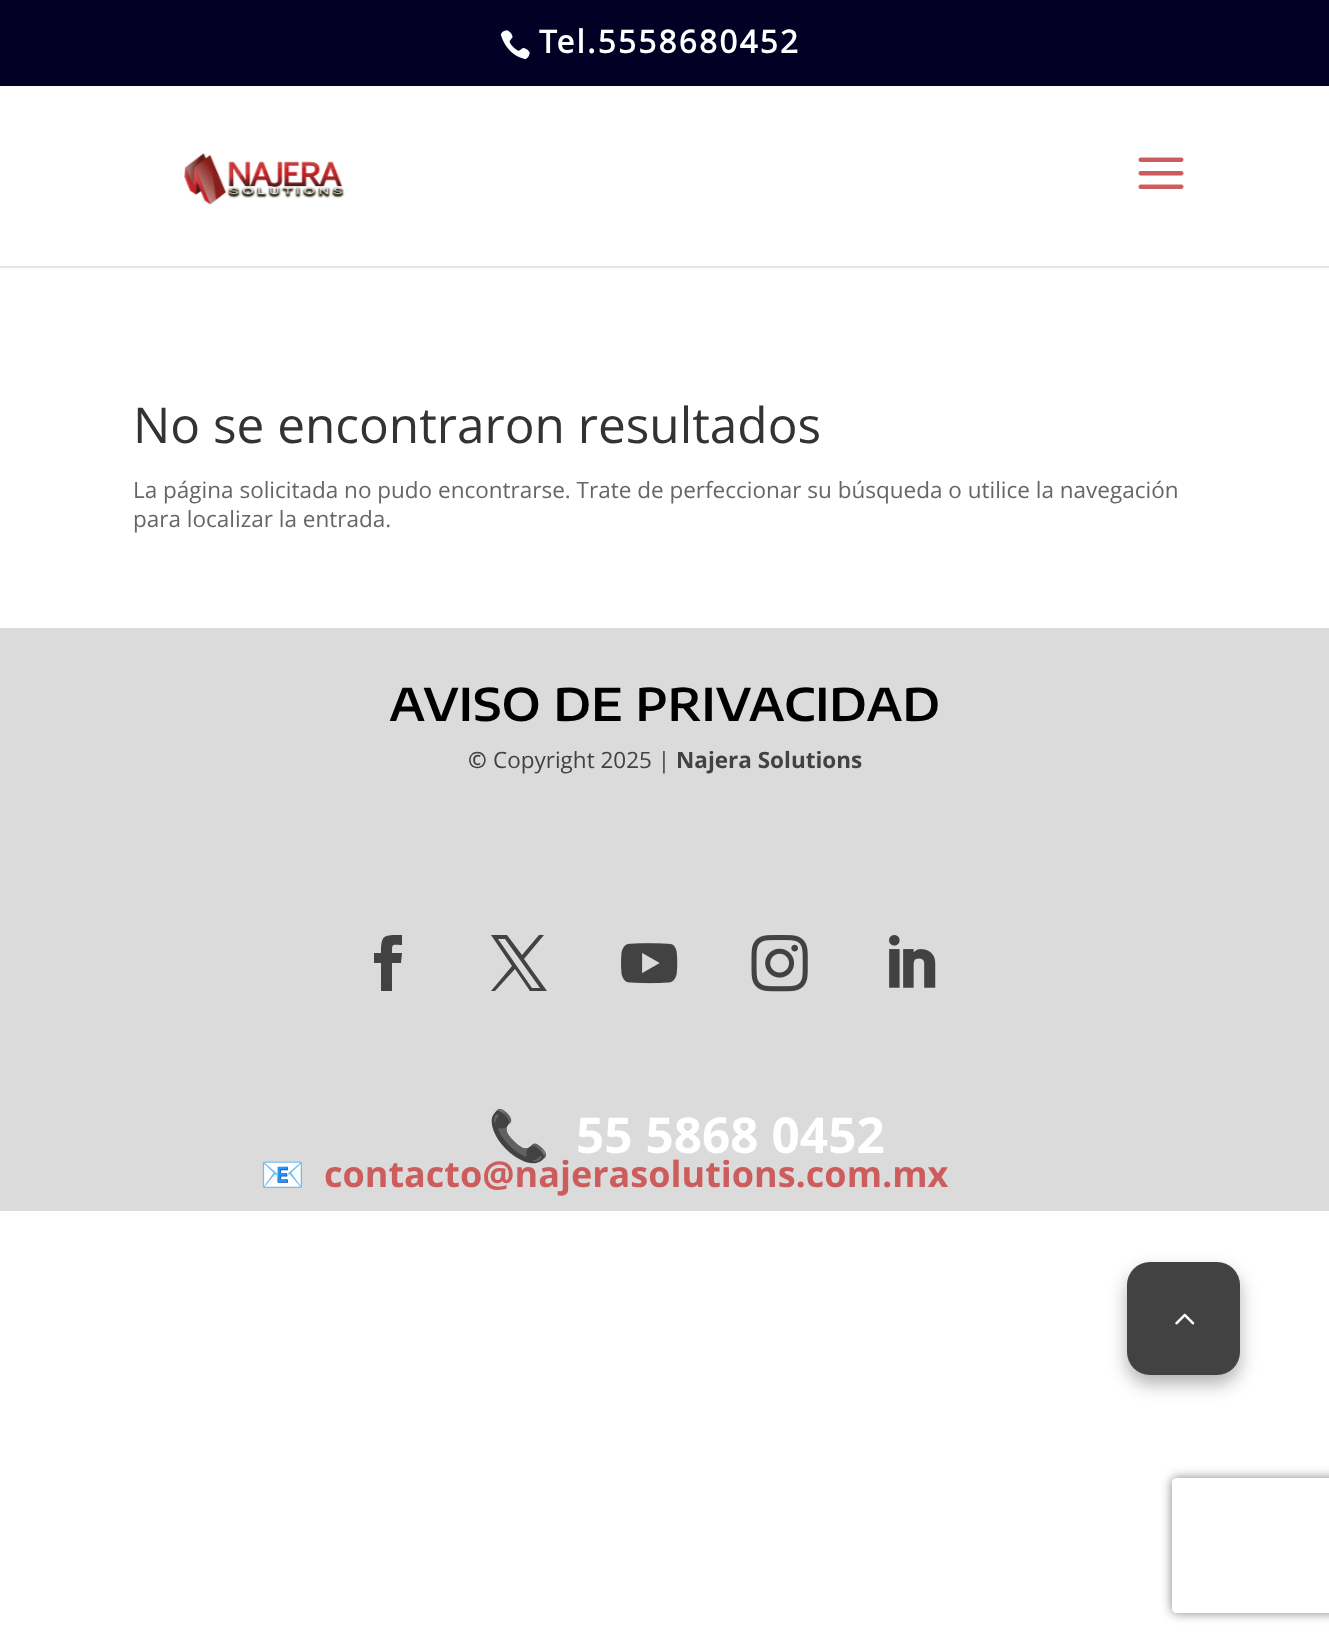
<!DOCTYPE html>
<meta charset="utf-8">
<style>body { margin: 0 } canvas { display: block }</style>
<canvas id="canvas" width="1329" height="1643"></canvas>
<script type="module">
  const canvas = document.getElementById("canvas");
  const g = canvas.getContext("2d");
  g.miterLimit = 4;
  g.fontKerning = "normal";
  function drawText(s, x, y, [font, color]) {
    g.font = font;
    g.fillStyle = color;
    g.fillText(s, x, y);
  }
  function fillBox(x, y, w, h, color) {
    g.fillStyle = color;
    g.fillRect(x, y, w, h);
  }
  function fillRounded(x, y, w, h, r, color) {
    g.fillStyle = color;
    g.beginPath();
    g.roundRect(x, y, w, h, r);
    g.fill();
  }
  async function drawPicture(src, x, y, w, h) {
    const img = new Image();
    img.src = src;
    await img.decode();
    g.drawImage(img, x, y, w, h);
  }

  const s1 = ["bold 31.5px Noto Sans Sharada", "#FFFFFF"];
  const s2 = ["49.5px Open Sans", "#333333"];
  const s3 = ["22.5px Open Sans", "#666666"];
  const s4 = ["600 45px Encode Sans Expanded", "#000000"];
  const s5 = ["bold 22.5px Open Sans", "#424242"];
  const s6 = ["22.5px Open Sans", "#424242"];
  const s7 = ["bold 49.5px Noto Color Emoji", "#FFFFFF"];
  const s8 = ["bold 49.5px Open Sans", "#FFFFFF"];
  const s9 = ["bold 36px Noto Color Emoji", "#CD5C5C"];
  const s10 = ["bold 36px Open Sans", "#CD5C5C"];

  fillBox(0, 0, 1329, 1643, "#FFFFFF");
  fillBox(0, 0, 1329, 86, "#030026");
  await drawPicture("pic1.png", 500, 30, 30, 30);
  g.letterSpacing = "2.25px";
  drawText("Tel.5558680452", 539, 53, s1);
  g.fillStyle = "#E6E6E6";
  g.beginPath();
  g.moveTo(0, 266);
  g.lineTo(0, 268);
  g.lineTo(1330, 268);
  g.lineTo(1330, 88);
  g.lineTo(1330, 266);
  g.closePath();
  g.fill();
  await drawPicture("pic2.png", 184, 153, 161, 52);
  await drawPicture("pic3.png", 1138, 157, 46, 32);
  g.letterSpacing = "0px";
  drawText("No se encontraron resultados", 133, 443, s2);
  drawText("La página solicitada no pudo encontrarse. Trate de perfeccionar su búsqueda o utilice la navegación", 133, 498, s3);
  drawText("para localizar la entrada.", 133, 527, s3);
  fillBox(0, 628, 1329, 583, "#DBDBDB");
  drawText("AVISO DE PRIVACIDAD", 389, 721, s4);
  drawText("©", 468, 768, s5);
  drawText("Copyright 2025 |", 493, 768, s6);
  drawText("Najera Solutions", 676, 768, s5);
  g.beginPath();
  g.moveTo(381, 991);
  g.lineTo(392, 991);
  g.lineTo(392, 963);
  g.lineTo(401, 963);
  g.lineTo(402, 953);
  g.lineTo(392, 953);
  g.bezierCurveTo(392, 943, 392, 945, 402, 945);
  g.lineTo(402, 935);
  g.bezierCurveTo(384, 935, 381, 934, 381, 953);
  g.lineTo(374, 953);
  g.lineTo(374, 963);
  g.lineTo(381, 963);
  g.closePath();
  g.fill();
  g.beginPath();
  g.moveTo(491, 935);
  g.lineTo(512, 966);
  g.lineTo(491, 991);
  g.lineTo(495, 991);
  g.lineTo(515, 969);
  g.lineTo(530, 991);
  g.lineTo(547, 991);
  g.lineTo(524, 959);
  g.lineTo(544, 935);
  g.lineTo(539, 935);
  g.lineTo(522, 955);
  g.lineTo(507, 935);
  g.closePath();
  g.moveTo(498, 939);
  g.lineTo(505, 939);
  g.lineTo(540, 988);
  g.lineTo(532, 988);
  g.closePath();
  g.fill();
  await drawPicture("pic4.png", 621, 943, 57, 41);
  await drawPicture("pic5.png", 751, 935, 57, 57);
  await drawPicture("pic6.png", 889, 935, 47, 53);
  drawText("📞", 488, 1153, s7);
  drawText("55 5868 0452", 576, 1153, s8);
  drawText("📧", 260, 1187, s9);
  drawText("contacto@najerasolutions.com.mx", 324, 1187, s10);
  g.fillStyle = "rgba(0, 0, 0, 0.3)";
  g.filter = "blur(9px)";
  g.beginPath();
  g.roundRect(1127, 1271, 113, 113, 23);
  g.fill();
  g.filter = "none";
  fillRounded(1127, 1262, 113, 113, 23, "#424242");
  await drawPicture("pic7.png", 1175, 1313, 20, 12);
  g.save();
  g.beginPath();
  g.moveTo(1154, 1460);
  g.lineTo(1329, 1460);
  g.lineTo(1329, 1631);
  g.lineTo(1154, 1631);
  g.closePath();
  g.moveTo(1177, 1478);
  g.lineTo(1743, 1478);
  g.bezierCurveTo(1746, 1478, 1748, 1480, 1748, 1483);
  g.lineTo(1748, 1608);
  g.bezierCurveTo(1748, 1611, 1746, 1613, 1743, 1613);
  g.lineTo(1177, 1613);
  g.bezierCurveTo(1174, 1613, 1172, 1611, 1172, 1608);
  g.lineTo(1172, 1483);
  g.bezierCurveTo(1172, 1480, 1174, 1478, 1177, 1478);
  g.closePath();
  g.clip("evenodd");
  g.fillStyle = "#808080";
  g.filter = "blur(5.5px)";
  g.beginPath();
  g.roundRect(1172, 1478, 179, 135, 5);
  g.fill();
  g.filter = "none";
  g.restore();
</script>
